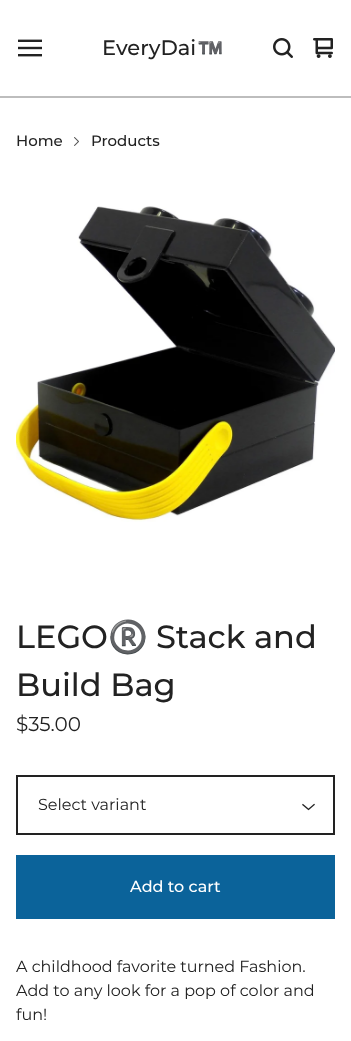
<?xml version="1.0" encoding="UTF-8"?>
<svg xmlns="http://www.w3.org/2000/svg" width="351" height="1041">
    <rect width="100%" height="100%" fill="#FFFFFF"/>
    <rect x="0" y="96" width="351" height="2" fill="#BDBDBD"/>
    <image x="18" y="39" width="24" height="18" href="img_01.png"/>
    <text x="102" y="55" font-family="Montserrat" font-size="21" font-weight="500" fill="#222222">EveryDai</text>
    <text x="197" y="55" font-family="Noto Color Emoji" font-size="21" fill="#222222">™️</text>
    <image x="273" y="38" width="20" height="20" href="img_02.png"/>
    <image x="313" y="38" width="20" height="20" href="img_03.png"/>
    <text x="16" y="146" font-family="Montserrat" font-size="15" font-weight="500" fill="#222222">Home</text>
    <image x="74" y="137" width="5" height="9" href="img_04.png"/>
    <text x="91" y="146" font-family="Montserrat" font-size="15" font-weight="500" fill="#222222">Products</text>
    <image x="16" y="206" width="319" height="316" href="img_05.png"/>
    <text x="16" y="648" font-family="Montserrat" font-size="32" font-weight="500" fill="#222222">LEGO</text>
    <text x="108" y="648" font-family="Noto Color Emoji" font-size="32" fill="#222222">®️</text>
    <text x="156" y="648" font-family="Montserrat" font-size="32" font-weight="500" fill="#222222">Stack and</text>
    <text x="16" y="696" font-family="Montserrat" font-size="32" font-weight="500" fill="#222222">Build Bag</text>
    <text x="16" y="731" font-family="Montserrat" font-size="20" fill="#222222">$35.00</text>
    <image x="302" y="803" width="13" height="8" href="img_06.png"/>
    <rect x="17" y="776" width="317" height="58" fill="none" stroke="#222222" stroke-width="2"/>
    <text x="38" y="810" font-family="Montserrat" font-size="16" fill="#222222">Select variant</text>
    <rect x="16" y="855" width="319" height="64" fill="#0B639A"/>
    <text x="130" y="892" font-family="Montserrat" font-size="16" font-weight="500" fill="#FFFFFF">Add to cart</text>
    <text font-family="Montserrat" font-size="16" fill="#222222">
        <tspan x="16" y="972">A childhood favorite turned Fashion.</tspan>
        <tspan x="16" y="996">Add to any look for a pop of color and</tspan>
        <tspan x="16" y="1020">fun!</tspan>
    </text>
</svg>
